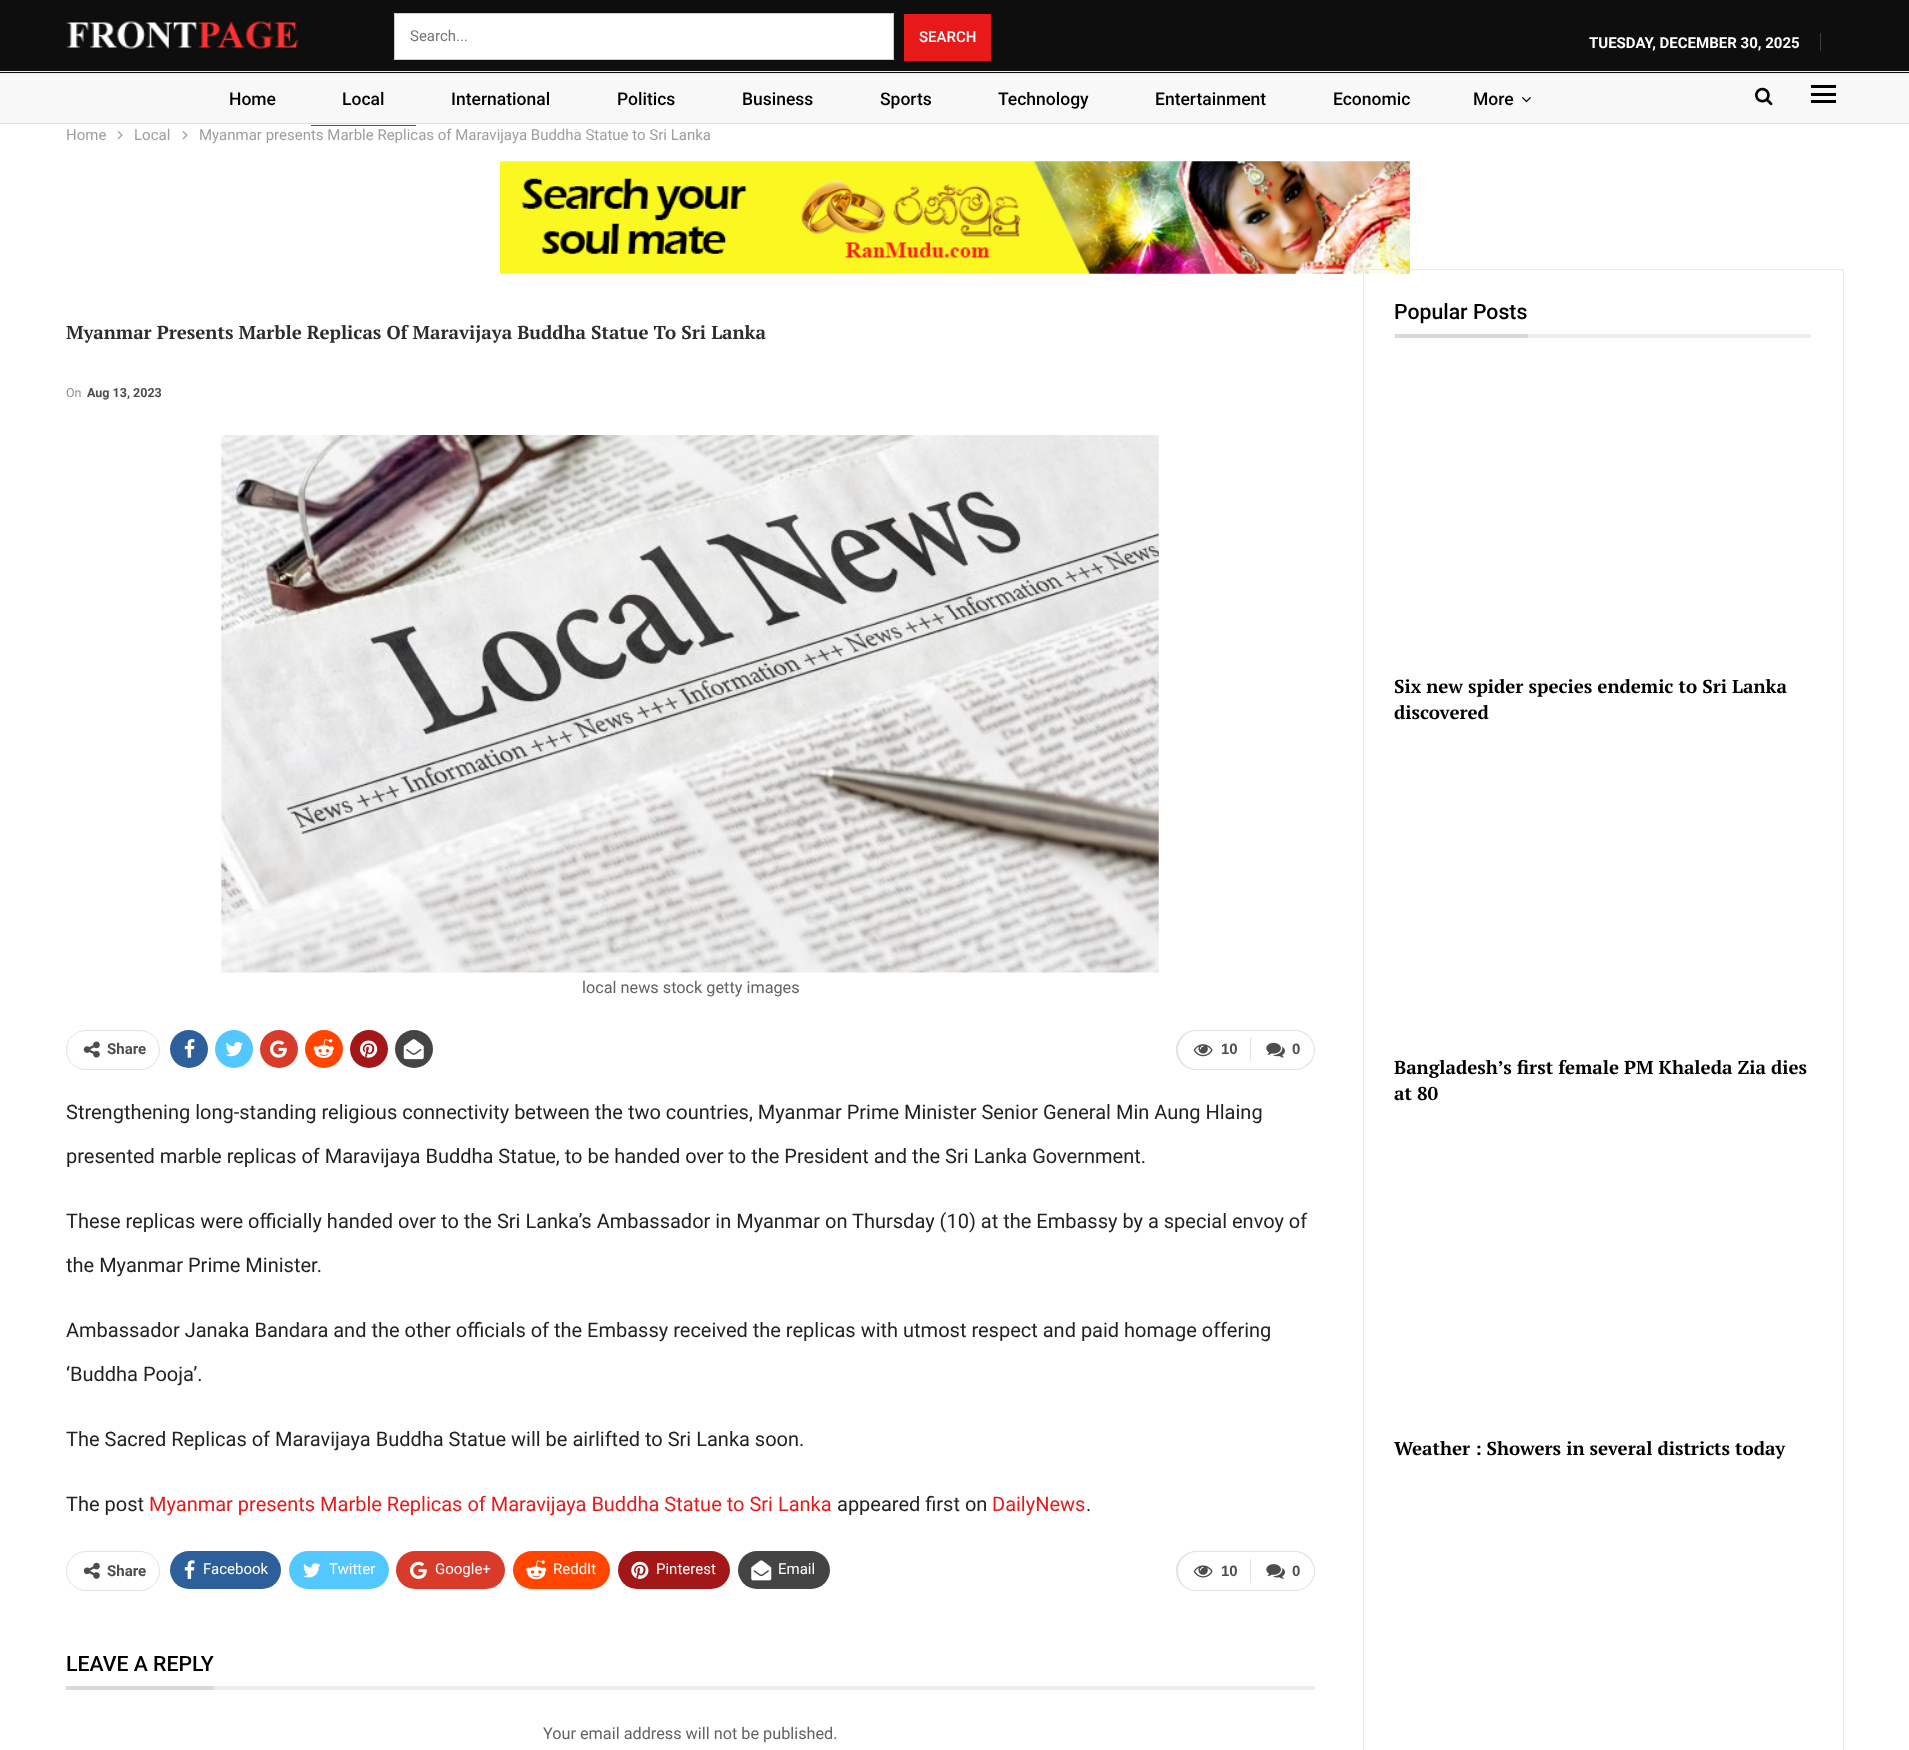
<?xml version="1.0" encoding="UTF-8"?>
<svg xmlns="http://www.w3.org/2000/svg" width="1909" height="1750">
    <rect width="100%" height="100%" fill="#FFFFFF"/>
    <rect x="0" y="0" width="1909" height="73" fill="#0E0E0E"/>
    <rect x="0" y="71" width="1909" height="1" fill="#EFEFEF"/>
    <image x="66" y="21" width="232" height="28" href="img_01.png"/>
    <rect x="394.5" y="13.5" width="499" height="46" fill="#FFFFFF" stroke="#CCCCCC"/>
    <text x="410" y="41" font-family="Roboto" font-size="15" fill="#757575">Search...</text>
    <rect x="904" y="14" width="87" height="47" fill="#E81919"/>
    <text x="919" y="42" font-family="Roboto" font-size="15" font-weight="500" fill="#FFFFFF">SEARCH</text>
    <text x="1589" y="48" font-family="Roboto" font-size="15" font-weight="700" fill="#FFFFFF">TUESDAY, DECEMBER 30, 2025</text>
    <rect x="1820" y="33" width="1" height="18" fill="#3E3E3E"/>
    <rect x="0" y="74" width="1909" height="49" fill="#F8F8F8"/>
    <rect x="0" y="73" width="1909" height="1" fill="#E8E8E8"/>
    <rect x="0" y="123" width="1909" height="1" fill="#DEDEDE"/>
    <text x="229" y="105" font-family="Roboto" font-size="17.5" font-weight="500" fill="#000000">Home</text>
    <text x="342" y="105" font-family="Roboto" font-size="17.5" font-weight="500" fill="#000000">Local</text>
    <rect x="311" y="125" width="105" height="1" fill="#E81919"/>
    <text x="451" y="105" font-family="Roboto" font-size="17.5" font-weight="500" fill="#000000">International</text>
    <text x="617" y="105" font-family="Roboto" font-size="17.5" font-weight="500" fill="#000000">Politics</text>
    <text x="742" y="105" font-family="Roboto" font-size="17.5" font-weight="500" fill="#000000">Business</text>
    <text x="880" y="105" font-family="Roboto" font-size="17.5" font-weight="500" fill="#000000">Sports</text>
    <text x="998" y="105" font-family="Roboto" font-size="17.5" font-weight="500" fill="#000000">Technology</text>
    <text x="1155" y="105" font-family="Roboto" font-size="17.5" font-weight="500" fill="#000000">Entertainment</text>
    <text x="1333" y="105" font-family="Roboto" font-size="17.5" font-weight="500" fill="#000000">Economic</text>
    <text x="1473" y="105" font-family="Roboto" font-size="17.5" font-weight="500" fill="#000000">More</text>
    <image x="1522" y="97" width="9" height="6" href="img_02.png"/>
    <image x="1755" y="87" width="18" height="19" href="img_03.png"/>
    <rect x="1811" y="93" width="25" height="3" fill="#000000"/>
    <rect x="1811" y="85" width="25" height="3" fill="#000000"/>
    <rect x="1811" y="100" width="25" height="3" fill="#000000"/>
    <text x="66" y="140" font-family="Roboto" font-size="15" fill="#9E9E9E">Home</text>
    <image x="117" y="131" width="6" height="9" href="img_04.png"/>
    <text x="134" y="140" font-family="Roboto" font-size="15" fill="#9E9E9E">Local</text>
    <image x="182" y="131" width="6" height="9" href="img_04.png"/>
    <text x="199" y="140" font-family="Roboto" font-size="15" fill="#9E9E9E">Myanmar presents Marble Replicas of Maravijaya Buddha Statue to Sri Lanka</text>
    <image x="500" y="161" width="910" height="113" href="img_05.png"/>
    <text x="66" y="339" font-family="PT Serif" font-size="18.75" font-weight="700" fill="#2D2D2D">Myanmar Presents Marble Replicas Of Maravijaya Buddha Statue To Sri Lanka</text>
    <text x="66" y="397" font-family="Roboto" font-size="12.5" fill="#8F8F8F">On</text>
    <text x="87" y="397" font-family="Roboto" font-size="12.5" font-weight="700" fill="#4D4D4D">Aug 13, 2023</text>
    <image x="221" y="435" width="938" height="538" href="img_06.png"/>
    <text x="582" y="993" font-family="Roboto" font-size="16.25" fill="#636363">local news stock getty images</text>
    <rect x="66.5" y="1030.5" width="93" height="39" rx="19.5" fill="none" stroke="#E2E2E2"/>
    <image x="83" y="1041" width="17" height="17" href="img_07.png"/>
    <text x="107" y="1054" font-family="Roboto" font-size="15" font-weight="700" fill="#4D4D4D">Share</text>
    <circle cx="189" cy="1049" r="19" fill="#2D5F9A"/>
    <image x="184" y="1039" width="11" height="19" href="img_08.png"/>
    <circle cx="234" cy="1049" r="19" fill="#53C7FF"/>
    <image x="225" y="1042" width="18" height="15" href="img_09.png"/>
    <circle cx="279" cy="1049" r="19" fill="#D93B2B"/>
    <image x="270" y="1040" width="17" height="18" href="img_10.png"/>
    <circle cx="324" cy="1049" r="19" fill="#FF4500"/>
    <image x="313" y="1039" width="21" height="19" href="img_11.png"/>
    <circle cx="369" cy="1049" r="19" fill="#A41719"/>
    <image x="360" y="1040" width="18" height="18" href="img_12.png"/>
    <circle cx="414" cy="1049" r="19" fill="#444444"/>
    <image x="403" y="1039" width="21" height="21" href="img_13.png"/>
    <path d="M 1196 1030 H 1250 V 1070 H 1196 C 1185 1070 1176 1061 1176 1050 C 1176 1039 1185 1030 1196 1030 Z M 1196 1031 H 1250 V 1069 H 1196 C 1186 1069 1178 1060 1178 1050 C 1178 1040 1186 1031 1196 1031 Z" fill="#E2E2E2" fill-rule="evenodd"/>
    <image x="1193" y="1044" width="20" height="13" href="img_14.png"/>
    <text x="1221" y="1054" font-family="Liberation Sans" font-size="15" font-weight="700" fill="#4D4D4D">10</text>
    <path d="M 1250 1030 H 1295 C 1306 1030 1315 1039 1315 1050 C 1315 1061 1306 1070 1295 1070 H 1250 Z M 1250 1031 H 1295 C 1305 1031 1314 1040 1314 1050 C 1314 1060 1305 1069 1295 1069 H 1250 Z" fill="#E2E2E2" fill-rule="evenodd"/>
    <rect x="1250" y="1038" width="1" height="23" fill="#E2E2E2"/>
    <image x="1266" y="1042" width="19" height="16" href="img_15.png"/>
    <text x="1292" y="1054" font-family="Liberation Sans" font-size="15" font-weight="700" fill="#4D4D4D">0</text>
    <text x="66" y="1119" font-family="Roboto" font-size="20" fill="#222222">Strengthening long-standing religious connectivity between the two countries, Myanmar Prime Minister Senior General Min Aung Hlaing</text>
    <text x="66" y="1163" font-family="Roboto" font-size="20" fill="#222222">presented marble replicas of Maravijaya Buddha Statue, to be handed over to the President and the Sri Lanka Government.</text>
    <text x="66" y="1228" font-family="Roboto" font-size="20" fill="#222222">These replicas were officially handed over to the Sri Lanka’s Ambassador in Myanmar on Thursday (10) at the Embassy by a special envoy of</text>
    <text x="66" y="1272" font-family="Roboto" font-size="20" fill="#222222">the Myanmar Prime Minister.</text>
    <text x="66" y="1337" font-family="Roboto" font-size="20" fill="#222222">Ambassador Janaka Bandara and the other officials of the Embassy received the replicas with utmost respect and paid homage offering</text>
    <text x="66" y="1381" font-family="Roboto" font-size="20" fill="#222222">‘Buddha Pooja’.</text>
    <text x="66" y="1446" font-family="Roboto" font-size="20" fill="#222222">The Sacred Replicas of Maravijaya Buddha Statue will be airlifted to Sri Lanka soon.</text>
    <text x="66" y="1511" font-family="Roboto" font-size="20" fill="#222222">The post</text>
    <text x="149" y="1511" font-family="Roboto" font-size="20" fill="#E81919">Myanmar presents Marble Replicas of Maravijaya Buddha Statue to Sri Lanka</text>
    <text x="837" y="1511" font-family="Roboto" font-size="20" fill="#222222">appeared first on</text>
    <text x="992" y="1511" font-family="Roboto" font-size="20" fill="#E81919">DailyNews</text>
    <text x="1086" y="1511" font-family="Roboto" font-size="20" fill="#222222">.</text>
    <rect x="66.5" y="1551.5" width="93" height="39" rx="19.5" fill="none" stroke="#E2E2E2"/>
    <image x="83" y="1562" width="17" height="17" href="img_16.png"/>
    <text x="107" y="1576" font-family="Roboto" font-size="15" font-weight="700" fill="#4D4D4D">Share</text>
    <rect x="170" y="1551" width="111" height="38" rx="19" fill="#2D5F9A"/>
    <image x="184" y="1560" width="11" height="19" href="img_17.png"/>
    <text x="203" y="1574" font-family="Roboto" font-size="15" fill="#FFFFFF">Facebook</text>
    <rect x="289" y="1551" width="100" height="38" rx="19" fill="#53C7FF"/>
    <image x="303" y="1563" width="18" height="15" href="img_18.png"/>
    <text x="329" y="1574" font-family="Roboto" font-size="15" fill="#FFFFFF">Twitter</text>
    <rect x="396" y="1551" width="109" height="38" rx="19" fill="#D93B2B"/>
    <image x="410" y="1561" width="17" height="18" href="img_19.png"/>
    <text x="435" y="1574" font-family="Roboto" font-size="15" fill="#FFFFFF">Google+</text>
    <rect x="513" y="1551" width="97" height="38" rx="19" fill="#FF4500"/>
    <image x="526" y="1560" width="21" height="20" href="img_20.png"/>
    <text x="553" y="1574" font-family="Roboto" font-size="15" fill="#FFFFFF">ReddIt</text>
    <rect x="618" y="1551" width="112" height="38" rx="19" fill="#A41719"/>
    <image x="631" y="1561" width="18" height="18" href="img_21.png"/>
    <text x="656" y="1574" font-family="Roboto" font-size="15" fill="#FFFFFF">Pinterest</text>
    <rect x="738" y="1551" width="92" height="38" rx="19" fill="#444444"/>
    <image x="751" y="1560" width="21" height="21" href="img_22.png"/>
    <text x="778" y="1574" font-family="Roboto" font-size="15" fill="#FFFFFF">Email</text>
    <path d="M 1196 1551 H 1250 V 1591 H 1196 C 1185 1591 1176 1582 1176 1571 C 1176 1560 1185 1551 1196 1551 Z M 1196 1552 H 1250 V 1590 H 1196 C 1186 1590 1178 1582 1178 1571 C 1178 1561 1186 1552 1196 1552 Z" fill="#E2E2E2" fill-rule="evenodd"/>
    <image x="1193" y="1565" width="20" height="13" href="img_23.png"/>
    <text x="1221" y="1576" font-family="Liberation Sans" font-size="15" font-weight="700" fill="#4D4D4D">10</text>
    <path d="M 1250 1551 H 1295 C 1306 1551 1315 1560 1315 1571 C 1315 1582 1306 1591 1295 1591 H 1250 Z M 1250 1552 H 1295 C 1305 1552 1314 1561 1314 1571 C 1314 1582 1305 1590 1295 1590 H 1250 Z" fill="#E2E2E2" fill-rule="evenodd"/>
    <rect x="1250" y="1559" width="1" height="24" fill="#E2E2E2"/>
    <image x="1266" y="1564" width="19" height="15" href="img_24.png"/>
    <text x="1292" y="1576" font-family="Liberation Sans" font-size="15" font-weight="700" fill="#4D4D4D">0</text>
    <text x="66" y="1671" font-family="Roboto" font-size="21.25" font-weight="500" fill="#000000">LEAVE A REPLY</text>
    <rect x="66" y="1686" width="148" height="4" fill="#DADADA"/>
    <rect x="214" y="1686" width="1101" height="4" fill="#EDEDED"/>
    <text x="543" y="1739" font-family="Roboto" font-size="16.25" fill="#636363">Your email address will not be published.</text>
    <rect x="1363.5" y="269.5" width="480" height="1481" fill="none" stroke="#EAEAEA"/>
    <text x="1394" y="319" font-family="Roboto" font-size="21.25" font-weight="500" fill="#000000">Popular Posts</text>
    <rect x="1395" y="334" width="133" height="4" fill="#DADADA"/>
    <rect x="1528" y="334" width="283" height="4" fill="#EDEDED"/>
    <text font-family="PT Serif" font-size="18.75" font-weight="700" fill="#000000">
        <tspan x="1394" y="693">Six new spider species endemic to Sri Lanka</tspan>
        <tspan x="1394" y="719">discovered</tspan>
    </text>
    <text font-family="PT Serif" font-size="18.75" font-weight="700" fill="#000000">
        <tspan x="1394" y="1074">Bangladesh’s first female PM Khaleda Zia dies</tspan>
        <tspan x="1394" y="1100">at 80</tspan>
    </text>
    <text x="1394" y="1455" font-family="PT Serif" font-size="18.75" font-weight="700" fill="#000000">Weather : Showers in several districts today</text>
</svg>
